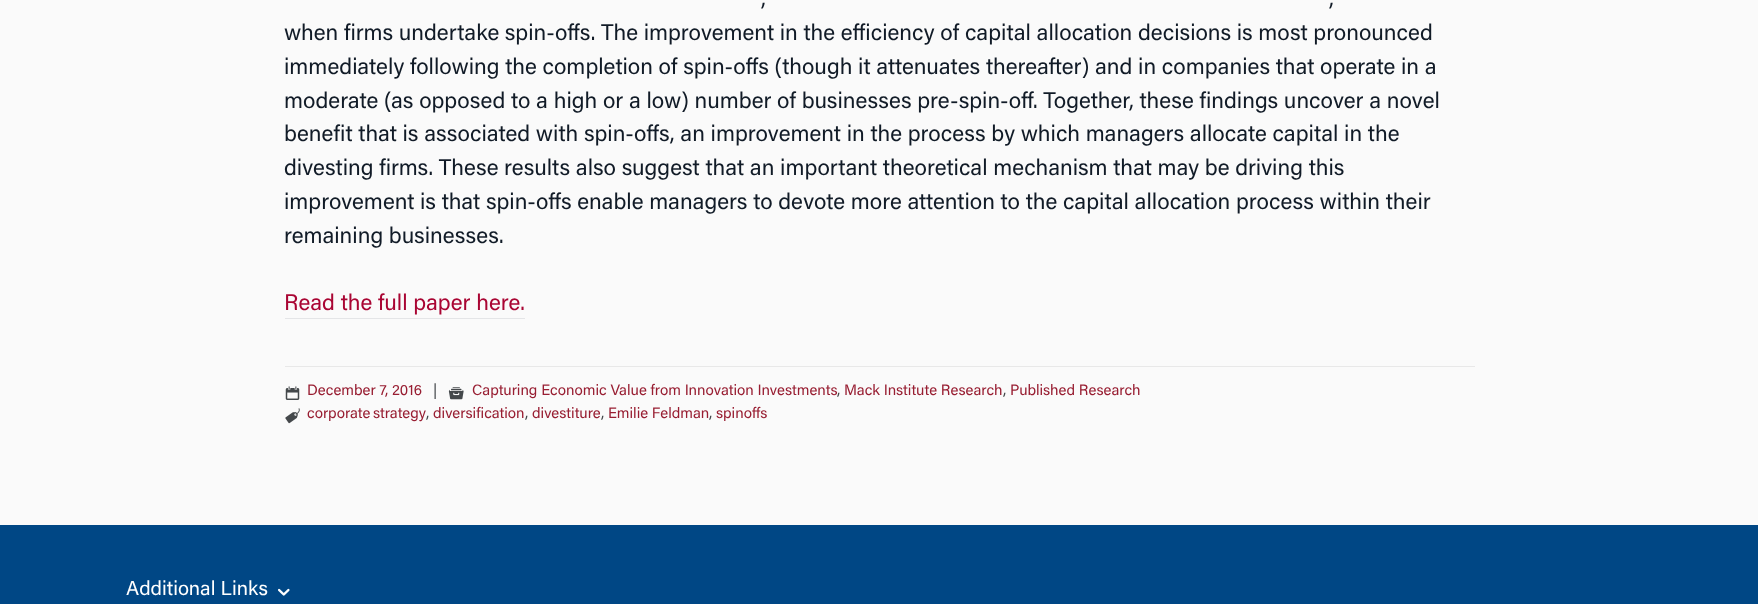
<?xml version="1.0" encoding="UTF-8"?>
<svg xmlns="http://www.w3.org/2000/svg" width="1758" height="604">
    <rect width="100%" height="100%" fill="#FAFAFA"/>
    <text x="761" y="6" font-family="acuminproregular" font-size="22.5" fill="#111B27">,</text>
    <text x="1329" y="6" font-family="acuminproregular" font-size="22.5" fill="#111B27">,</text>
    <text font-family="acuminproregular" font-size="22.5" fill="#111B27">
        <tspan x="284" y="40">when firms undertake spin-offs. The improvement in the efficiency of capital allocation decisions is most pronounced</tspan>
        <tspan x="284" y="74">immediately following the completion of spin-offs (though it attenuates thereafter) and in companies that operate in a</tspan>
        <tspan x="284" y="108">moderate (as opposed to a high or a low) number of businesses pre-spin-off. Together, these findings uncover a novel</tspan>
        <tspan x="284" y="141">benefit that is associated with spin-offs, an improvement in the process by which managers allocate capital in the</tspan>
        <tspan x="284" y="175">divesting firms. These results also suggest that an important theoretical mechanism that may be driving this</tspan>
        <tspan x="284" y="209">improvement is that spin-offs enable managers to devote more attention to the capital allocation process within their</tspan>
        <tspan x="284" y="243">remaining businesses.</tspan>
    </text>
    <text x="284" y="310" font-family="acuminproregular" font-size="22.5" fill="#A90533">Read the full paper here.</text>
    <rect x="285" y="318" width="240" height="1" fill="#E4E5E7"/>
    <rect x="285" y="366" width="1190" height="1" fill="#E8E8E8"/>
    <image x="285" y="386" width="15" height="14" href="img_01.png"/>
    <text x="307" y="395" font-family="acuminproregular" font-size="15" fill="#981E32">December 7, 2016</text>
    <text x="433" y="395" font-family="acuminproregular" font-size="15" fill="#44484B">|</text>
    <image x="448" y="387" width="16" height="13" href="img_02.png"/>
    <text x="472" y="395" font-family="acuminproregular" font-size="15" fill="#981E32">Capturing Economic Value from Innovation Investments</text>
    <text x="837" y="395" font-family="acuminproregular" font-size="15" fill="#44484B">,</text>
    <text x="844" y="395" font-family="acuminproregular" font-size="15" fill="#981E32">Mack Institute Research</text>
    <text x="1003" y="395" font-family="acuminproregular" font-size="15" fill="#44484B">,</text>
    <text x="1010" y="395" font-family="acuminproregular" font-size="15" fill="#981E32">Published Research</text>
    <image x="285" y="408" width="15" height="16" href="img_03.png"/>
    <text x="307" y="418" word-spacing="-1" font-family="acuminproregular" font-size="15" fill="#981E32">corporate strategy</text>
    <text x="426" y="418" font-family="acuminproregular" font-size="15" fill="#44484B">,</text>
    <text x="433" y="418" font-family="acuminproregular" font-size="15" fill="#981E32">diversification</text>
    <text x="525" y="418" font-family="acuminproregular" font-size="15" fill="#44484B">,</text>
    <text x="532" y="418" font-family="acuminproregular" font-size="15" fill="#981E32">divestiture</text>
    <text x="601" y="418" font-family="acuminproregular" font-size="15" fill="#44484B">,</text>
    <text x="608" y="418" font-family="acuminproregular" font-size="15" fill="#981E32">Emilie Feldman</text>
    <text x="709" y="418" font-family="acuminproregular" font-size="15" fill="#44484B">,</text>
    <text x="716" y="418" font-family="acuminproregular" font-size="15" fill="#981E32">spinoffs</text>
    <rect x="0" y="525" width="1758" height="79" fill="#004785"/>
    <text x="126" y="595" font-family="acuminproregular" font-size="20" fill="#FFFFFF">Additional Links</text>
    <image x="278" y="588" width="12" height="8" href="img_04.png"/>
</svg>
